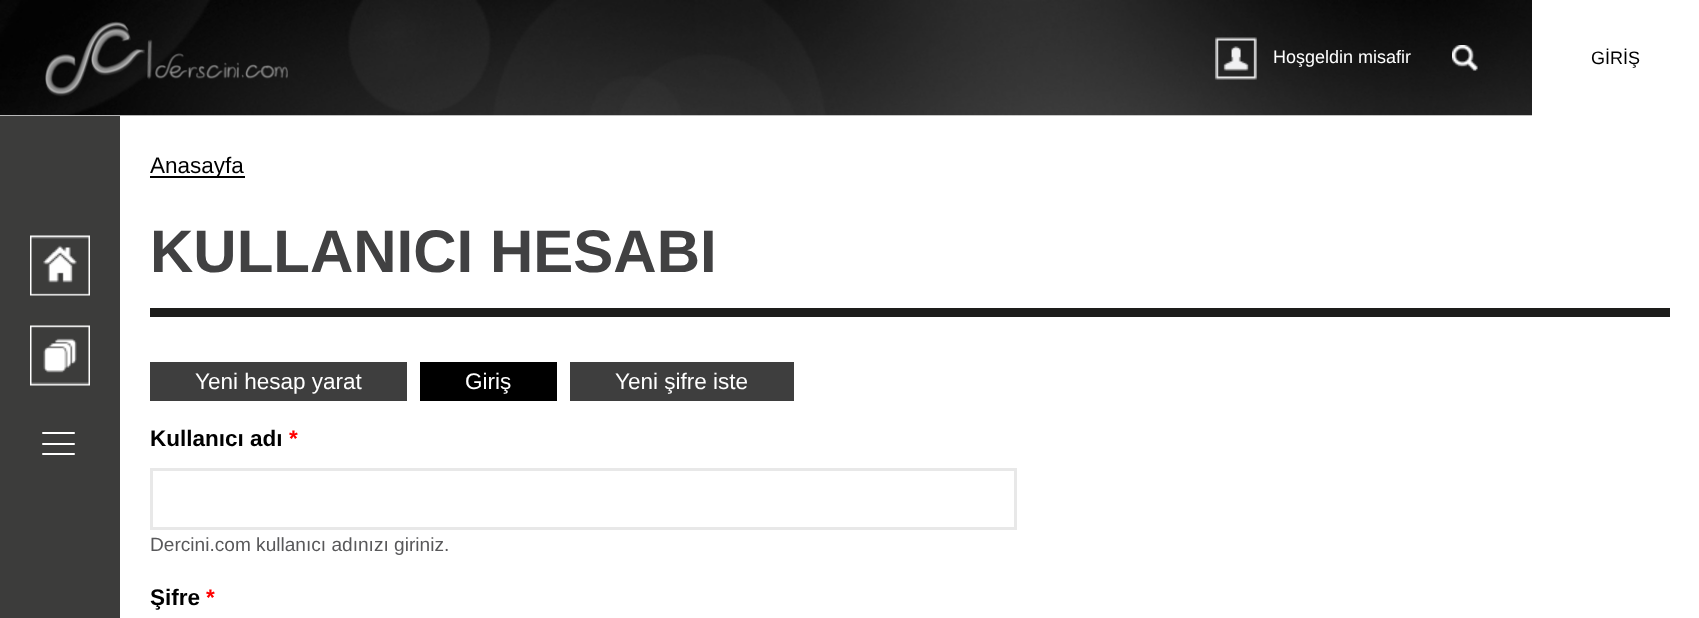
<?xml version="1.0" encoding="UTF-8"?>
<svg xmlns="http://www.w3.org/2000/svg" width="1699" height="618">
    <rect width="100%" height="100%" fill="#FFFFFF"/>
    <image x="0" y="0" width="1532" height="116" href="img_01.png"/>
    <image x="45" y="21" width="243" height="76" href="img_02.png"/>
    <image x="1215" y="37" width="42" height="43" href="img_03.png"/>
    <text x="1273" y="63" font-family="Liberation Sans" font-size="18" fill="#FFFFFF">Hoşgeldin misafir</text>
    <image x="1452" y="45" width="26" height="26" href="img_04.png"/>
    <text x="1591" y="64" font-family="Liberation Sans" font-size="18" fill="#000000">GİRİŞ</text>
    <image x="0" y="115" width="1532" height="1" href="img_05.png"/>
    <rect x="0" y="116" width="120" height="502" fill="#3C3C3B"/>
    <image x="30" y="235" width="60" height="61" href="img_06.png"/>
    <image x="30" y="325" width="60" height="61" href="img_07.png"/>
    <rect x="42" y="443" width="33" height="2" rx="1" fill="#FFFFFF"/>
    <rect x="42" y="432" width="33" height="2" rx="1" fill="#FFFFFF"/>
    <rect x="42" y="453" width="33" height="2" rx="1" fill="#FFFFFF"/>
    <rect x="150" y="176" width="95" height="2" fill="#000000"/>
    <text x="150" y="173" font-family="Liberation Sans" font-size="22.5" fill="#000000">Anasayfa</text>
    <rect x="150" y="308" width="1520" height="9" fill="#1D1D1B"/>
    <text x="150" y="272" font-family="Liberation Sans" font-size="60" font-weight="700" fill="#414142">KULLANICI HESABI</text>
    <rect x="150" y="362" width="257" height="39" fill="#3E3E3E"/>
    <text x="195" y="389" font-family="Liberation Sans" font-size="22.5" fill="#FFFFFF">Yeni hesap yarat</text>
    <rect x="420" y="362" width="137" height="39" fill="#000000"/>
    <text x="465" y="389" font-family="Liberation Sans" font-size="22.5" fill="#FFFFFF">Giriş</text>
    <rect x="570" y="362" width="224" height="39" fill="#3E3E3E"/>
    <text x="615" y="389" font-family="Liberation Sans" font-size="22.5" fill="#FFFFFF">Yeni şifre iste</text>
    <text x="150" y="446" font-family="Liberation Sans" font-size="22.5" font-weight="700" fill="#000000">Kullanıcı adı</text>
    <text x="289" y="446" font-family="Liberation Sans" font-size="22.5" font-weight="700" fill="#FF0000">*</text>
    <rect x="151.5" y="469.5" width="864" height="59" fill="none" stroke="#E8E8E8" stroke-width="3"/>
    <text x="150" y="551" font-family="Liberation Sans" font-size="19.1" fill="#58585A">Dercini.com kullanıcı adınızı giriniz.</text>
    <text x="150" y="605" font-family="Liberation Sans" font-size="22.5" font-weight="700" fill="#000000">Şifre</text>
    <text x="206" y="605" font-family="Liberation Sans" font-size="22.5" font-weight="700" fill="#FF0000">*</text>
</svg>
